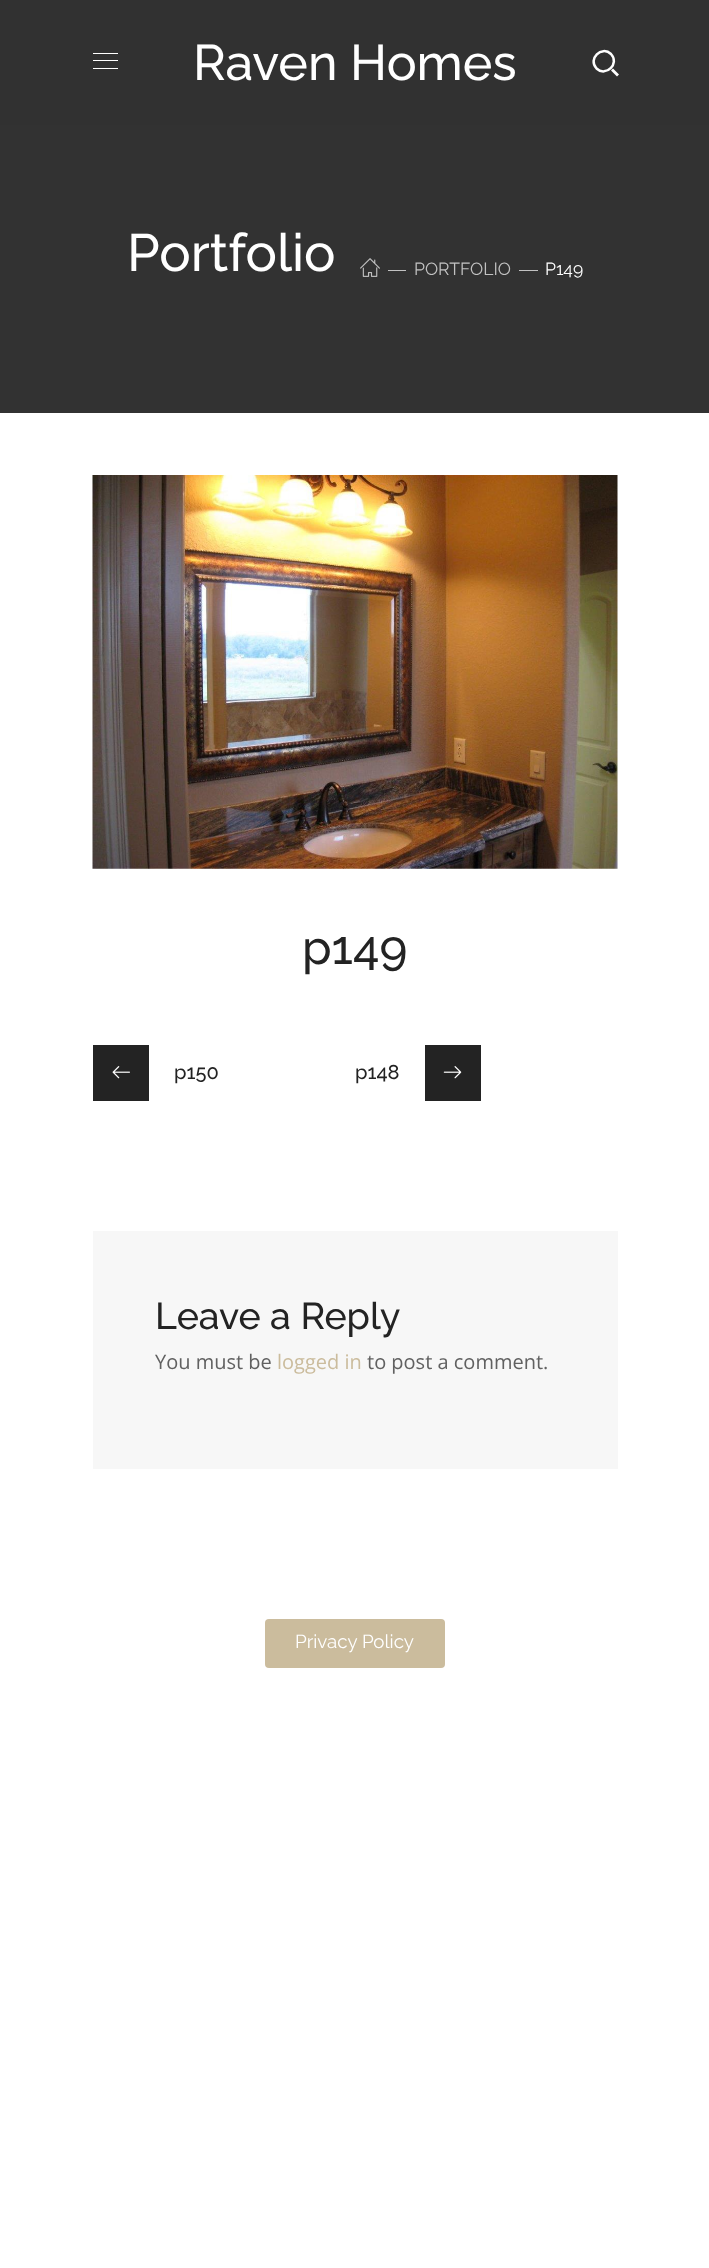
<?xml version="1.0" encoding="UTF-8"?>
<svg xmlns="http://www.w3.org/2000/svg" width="709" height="2268">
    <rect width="100%" height="100%" fill="#FFFFFF"/>
    <rect x="0" y="0" width="709" height="125" fill="#313131"/>
    <rect x="93" y="53" width="25" height="1" fill="#FFFFFF"/>
    <rect x="93" y="60" width="25" height="1" fill="#FFFFFF"/>
    <rect x="93" y="68" width="25" height="1" fill="#FFFFFF"/>
    <text x="193" y="80" font-family="Raleway" font-size="50" font-weight="500" fill="#FFFFFF">Raven Homes</text>
    <path d="M 611 54 C 620 63.5 606 77.5 596.5 68.5 C 587.5 59 601.5 45 611 54 Z" fill="none" stroke="#FFFFFF" stroke-width="2.5"/>
    <path d="M 611 70.5 L 613 68.5 L 619 74.5 L 617 76.5 Z" fill="#FFFFFF"/>
    <rect x="0" y="125" width="709" height="288" fill="#323232"/>
    <text x="127" y="271" font-family="Raleway" font-size="52.5" font-weight="500" fill="#FFFFFF">Portfolio</text>
    <image x="360" y="258" width="20" height="19" href="img_01.png"/>
    <rect x="388" y="270" width="18" height="1" fill="#C2C2C2"/>
    <text x="414" y="275" font-family="Raleway" font-size="17.5" fill="#C2C2C2">PORTFOLIO</text>
    <rect x="519" y="270" width="19" height="1" fill="#C2C2C2"/>
    <text x="545" y="275" font-family="Raleway" font-size="17.5" fill="#FFFFFF">P149</text>
    <image x="92" y="475" width="526" height="394" href="img_02.png"/>
    <text x="302" y="964" font-family="Raleway" font-size="47.5" font-weight="500" fill="#232323">p149</text>
    <rect x="93" y="1045" width="56" height="56" fill="#232323"/>
    <image x="112" y="1066" width="18" height="13" href="img_03.png"/>
    <text x="174" y="1079" font-family="Raleway" font-size="20" font-weight="500" fill="#232323">p150</text>
    <text x="355" y="1079" font-family="Raleway" font-size="20" font-weight="500" fill="#232323">p148</text>
    <rect x="425" y="1045" width="56" height="56" fill="#232323"/>
    <image x="443" y="1066" width="19" height="13" href="img_04.png"/>
    <rect x="93" y="1231" width="525" height="238" fill="#F7F7F7"/>
    <text x="155" y="1329" font-family="Raleway" font-size="37.5" font-weight="500" fill="#232323">Leave a Reply</text>
    <text x="155" y="1369" font-family="Open Sans" font-size="20" fill="#616161">You must be</text>
    <text x="277" y="1369" font-family="Open Sans" font-size="20" fill="#CBBC9D">logged in</text>
    <text x="367" y="1369" font-family="Open Sans" font-size="20" fill="#616161">to post a comment.</text>
    <rect x="265" y="1619" width="180" height="49" rx="4" fill="#CBBC9D"/>
    <text x="295" y="1648" font-family="Raleway" font-size="18.75" fill="#FFFFFF">Privacy Policy</text>
</svg>
